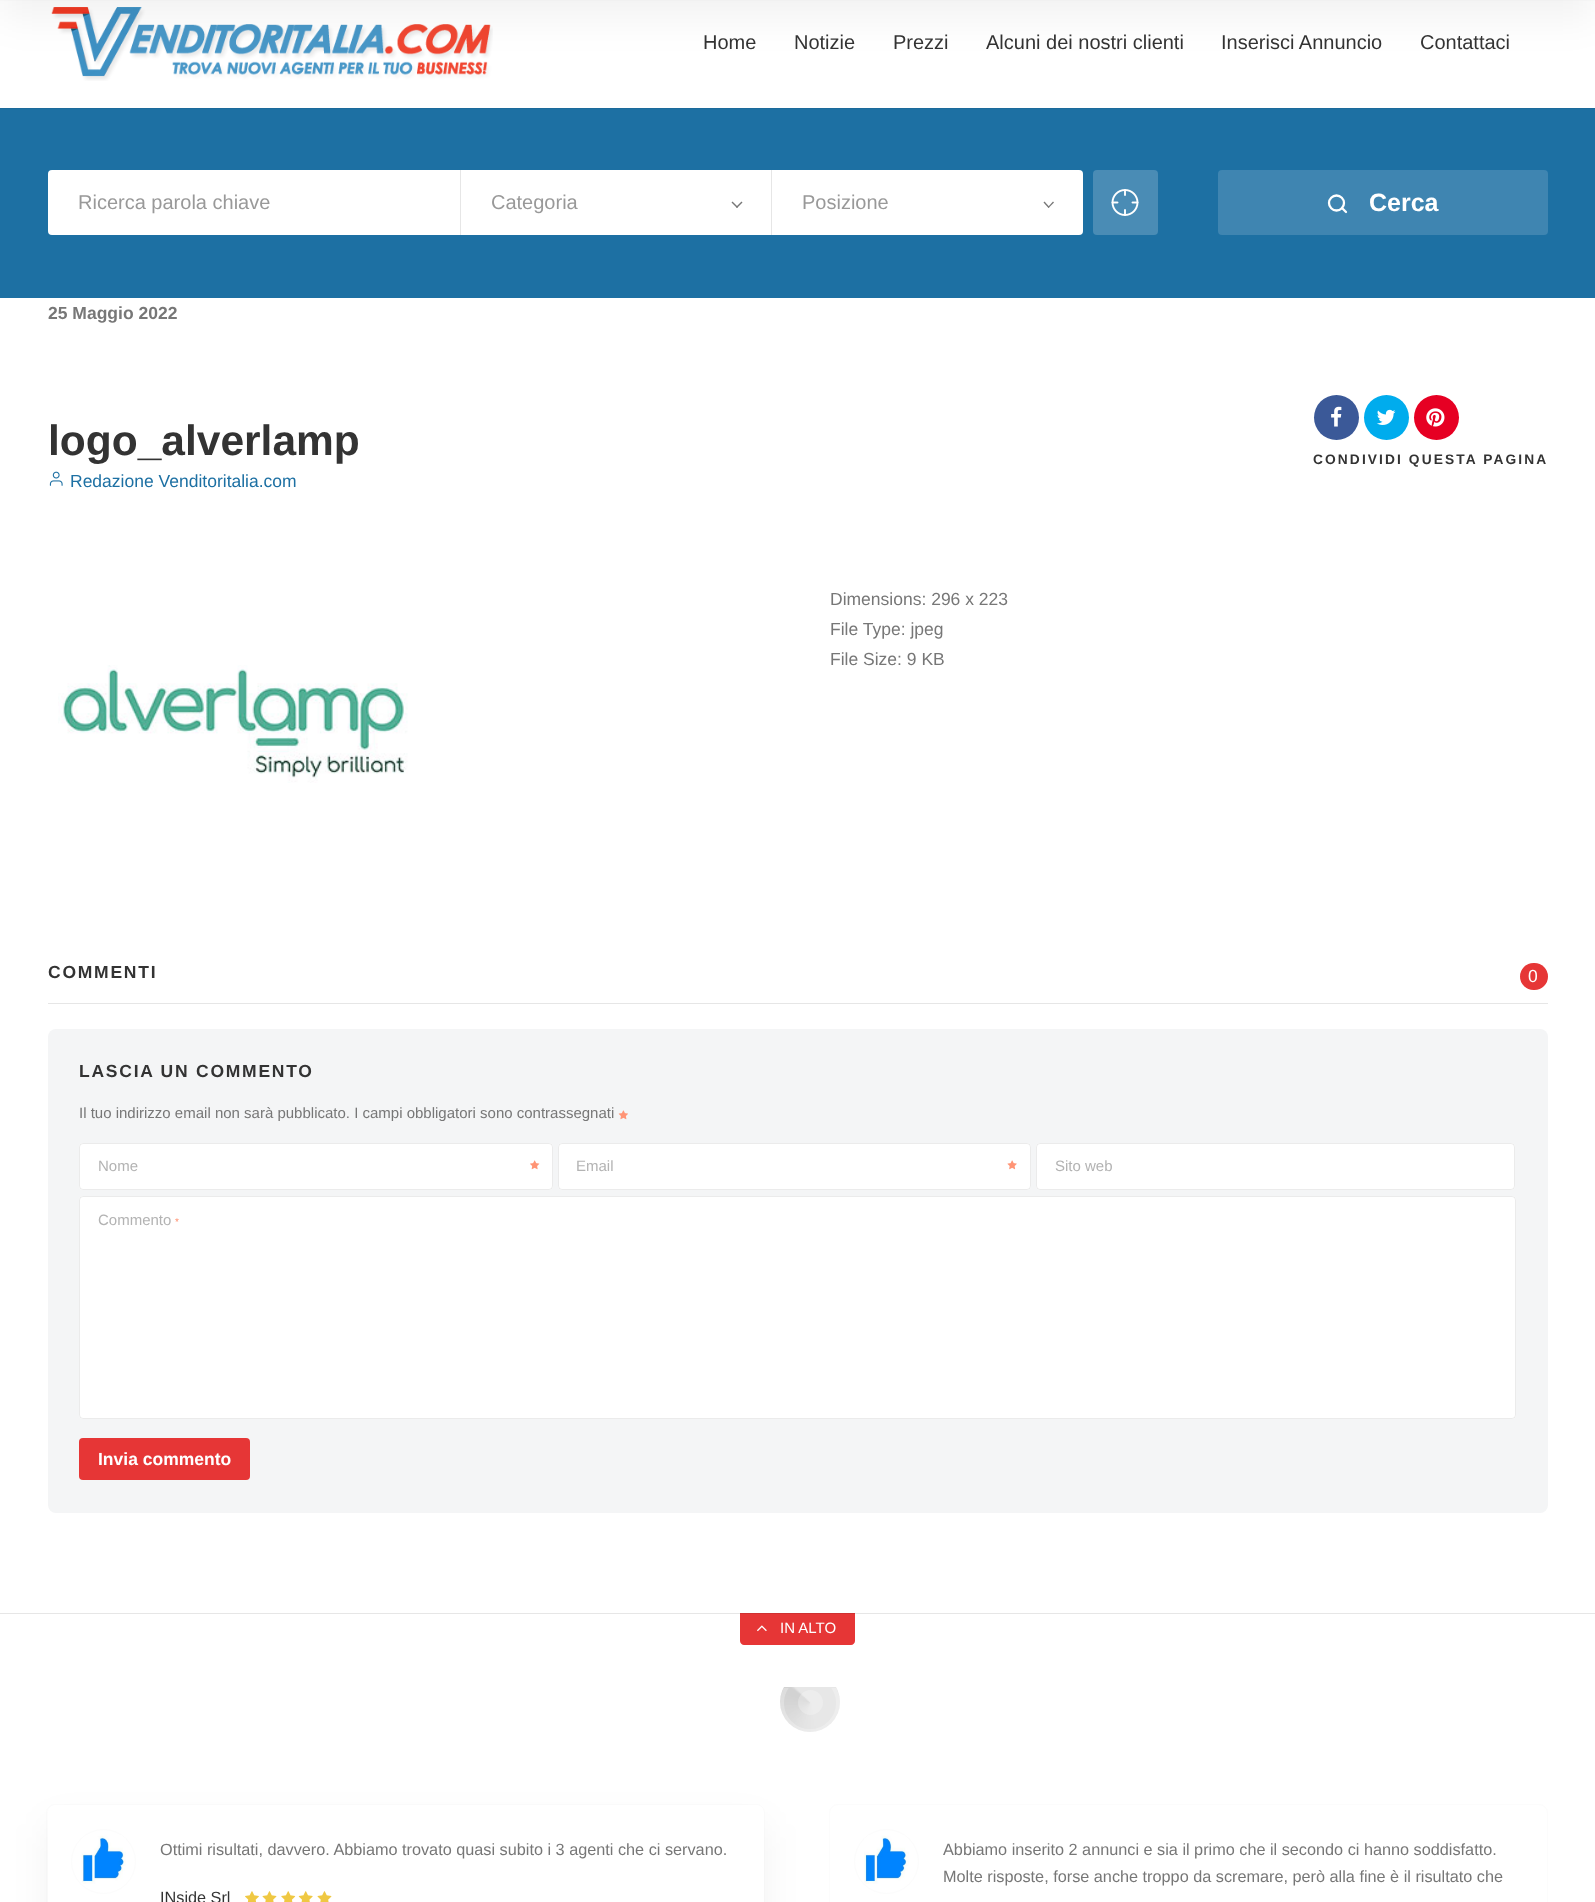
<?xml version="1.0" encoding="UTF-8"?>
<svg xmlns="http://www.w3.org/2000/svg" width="1595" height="1902">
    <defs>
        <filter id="blur1" x="-50%" y="-200%" width="200%" height="500%"><feGaussianBlur stdDeviation="19"/></filter>
        <clipPath id="clip1"><rect x="0" y="1688" width="1595" height="105"/></clipPath>
    </defs>
    <rect width="100%" height="100%" fill="#FFFFFF"/>
    <rect x="0" y="1613" width="1595" height="1" fill="#E6E6E6"/>
    <rect x="0" y="0" width="1595" height="1" fill="#FCFCFC"/>
    <image x="51" y="7" width="442" height="74" href="img_01.png"/>
    <rect x="0" y="-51" width="1595" height="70" fill="#000000" fill-opacity="0.05" filter="url(#blur1)"/>
    <rect x="0" y="108" width="1595" height="1" fill="#1C6A9B"/>
    <text x="703" y="49" font-family="Liberation Sans" font-size="20" fill="#333333">Home</text>
    <text x="794" y="49" font-family="Liberation Sans" font-size="20" fill="#333333">Notizie</text>
    <text x="893" y="49" font-family="Liberation Sans" font-size="20" fill="#333333">Prezzi</text>
    <text x="986" y="49" font-family="Liberation Sans" font-size="20" fill="#333333">Alcuni dei nostri clienti</text>
    <text x="1221" y="49" font-family="Liberation Sans" font-size="20" fill="#333333">Inserisci Annuncio</text>
    <text x="1420" y="49" font-family="Liberation Sans" font-size="20" fill="#333333">Contattaci</text>
    <rect x="0" y="109" width="1595" height="189" fill="#1D70A3"/>
    <rect x="48" y="170" width="1035" height="65" rx="4" fill="#FFFFFF"/>
    <rect x="460" y="170" width="1" height="65" fill="#E6E6E6"/>
    <text x="78" y="209" font-family="Liberation Sans" font-size="20" fill="#999999">Ricerca parola chiave</text>
    <rect x="771" y="170" width="1" height="65" fill="#E6E6E6"/>
    <text x="491" y="209" font-family="Liberation Sans" font-size="20" fill="#999999">Categoria</text>
    <path d="M 741.5 201.5 L 742.5 202.5 L 737 208 L 736 207 Z" fill="#777777"/>
    <path d="M 732.5 201.5 L 738 207 L 737 208 L 731.5 202.5 Z" fill="#777777"/>
    <text x="802" y="209" font-family="Liberation Sans" font-size="20" fill="#999999">Posizione</text>
    <path d="M 1053 201.5 L 1054 202.5 L 1048.5 208 L 1048 207 Z" fill="#777777"/>
    <path d="M 1044.5 201.5 L 1049.5 207 L 1048.5 208 L 1043.5 202.5 Z" fill="#777777"/>
    <rect x="1093" y="170" width="65" height="65" rx="4" fill="#4A8CB5"/>
    <image x="1111" y="189" width="28" height="27" href="img_02.png"/>
    <rect x="1218" y="170" width="330" height="65" rx="4" fill="#3F85B1"/>
    <circle cx="1336.5" cy="203" r="7.5" fill="none" stroke="#FFFFFF" stroke-width="2.3"/>
    <path d="M 1346 212 L 1342 208" fill="none" stroke="#FFFFFF" stroke-width="2.3" stroke-linecap="round" stroke-linejoin="round"/>
    <text x="1369" y="211" font-family="Liberation Sans" font-size="25" font-weight="700" fill="#FFFFFF">Cerca</text>
    <text x="48" y="319" font-family="Liberation Sans" font-size="17.5" font-weight="700" fill="#777777">25 Maggio 2022</text>
    <text x="48" y="455" font-family="Liberation Sans" font-size="42.5" font-weight="700" fill="#333333">logo_alverlamp</text>
    <image x="49" y="471" width="14" height="15" href="img_03.png"/>
    <text x="70" y="487" font-family="Liberation Sans" font-size="17.5" fill="#1D70A3">Redazione Venditoritalia.com</text>
    <circle cx="1336.5" cy="417.5" r="22.5" fill="#3B5998"/>
    <image x="1331" y="406" width="11" height="21" href="img_04.png"/>
    <circle cx="1386.5" cy="417.5" r="22.5" fill="#00ACED"/>
    <image x="1377" y="409" width="19" height="16" href="img_05.png"/>
    <circle cx="1436.5" cy="417.5" r="22.5" fill="#E60023"/>
    <image x="1426" y="408" width="19" height="19" href="img_06.png"/>
    <text x="1313" y="464" font-family="Liberation Sans" font-size="13.75" font-weight="700" letter-spacing="2.1" fill="#333333">CONDIVIDI QUESTA PAGINA</text>
    <text font-family="Liberation Sans" font-size="17.5" fill="#777777">
        <tspan x="830" y="605">Dimensions: 296 x 223</tspan>
        <tspan x="830" y="635">File Type: jpeg</tspan>
        <tspan x="830" y="665">File Size: 9 KB</tspan>
    </text>
    <image x="58" y="665" width="350" height="118" href="img_07.png"/>
    <rect x="48" y="1003" width="1500" height="1" fill="#E6E6E6"/>
    <text x="48" y="978" font-family="Liberation Sans" font-size="17.5" font-weight="700" letter-spacing="1.75" fill="#333333">COMMENTI</text>
    <rect x="1520" y="963" width="28" height="27" rx="13.5" fill="#E63636"/>
    <text x="1528" y="982" font-family="Liberation Sans" font-size="17.5" letter-spacing="1.75" fill="#FFFFFF">0</text>
    <rect x="48" y="1029" width="1500" height="484" rx="8" fill="#F4F5F6"/>
    <text x="79" y="1077" font-family="Liberation Sans" font-size="17.5" font-weight="700" letter-spacing="1.75" fill="#333333">LASCIA UN COMMENTO</text>
    <text x="79" y="1118" font-family="Liberation Sans" font-size="15" fill="#777777">Il tuo indirizzo email non sarà pubblicato. I campi obbligatori sono contrassegnati</text>
    <image x="618" y="1110" width="10" height="10" href="img_08.png"/>
    <rect x="79" y="1143" width="474" height="47" rx="4" fill="#FFFFFF"/>
    <rect x="79.5" y="1143.5" width="473" height="46" rx="3.5" fill="none" stroke="#000000" stroke-opacity="0.08"/>
    <text x="98" y="1171" font-family="Liberation Sans" font-size="15" fill="#B3B3B3">Nome</text>
    <image x="530" y="1160" width="10" height="10" href="img_09.png"/>
    <rect x="558" y="1143" width="473" height="47" rx="4" fill="#FFFFFF"/>
    <rect x="558.5" y="1143.5" width="472" height="46" rx="3.5" fill="none" stroke="#000000" stroke-opacity="0.08"/>
    <text x="576" y="1171" font-family="Liberation Sans" font-size="15" fill="#B3B3B3">Email</text>
    <image x="1007" y="1160" width="10" height="10" href="img_10.png"/>
    <rect x="1036" y="1143" width="479" height="47" rx="4" fill="#FFFFFF"/>
    <rect x="1036.5" y="1143.5" width="478" height="46" rx="3.5" fill="none" stroke="#000000" stroke-opacity="0.08"/>
    <text x="1055" y="1171" font-family="Liberation Sans" font-size="15" fill="#B3B3B3">Sito web</text>
    <rect x="79" y="1196" width="1437" height="223" rx="4" fill="#FFFFFF"/>
    <rect x="79.5" y="1196.5" width="1436" height="222" rx="3.5" fill="none" stroke="#000000" stroke-opacity="0.08"/>
    <text x="98" y="1225" font-family="Liberation Sans" font-size="15" fill="#B3B3B3">Commento</text>
    <text x="175" y="1225" font-family="Liberation Sans" font-size="10" fill="#FF9475">*</text>
    <rect x="79" y="1438" width="171" height="42" rx="4" fill="#E63636"/>
    <text x="98" y="1465" font-family="Liberation Sans" font-size="17.5" font-weight="700" fill="#FFFFFF">Invia commento</text>
    <path d="M 740 1613 H 855 V 1641 C 855 1643 853 1645 851 1645 H 744 C 742 1645 740 1643 740 1641 Z" fill="#E63636"/>
    <rect x="740" y="1613" width="115" height="1" fill="#CF3131"/>
    <image x="757" y="1625" width="10" height="7" href="img_11.png"/>
    <text x="780" y="1633" font-family="Liberation Sans" font-size="15" fill="#FFFFFF">IN ALTO</text>
    <image x="780" y="1687" width="60" height="45" href="img_12.png"/>
    <g clip-path="url(#clip1)">
        <circle cx="810" cy="1703" r="28" fill="none" stroke="#FFFFFF" stroke-opacity="0.26" stroke-width="4"/>
    </g>
    <circle cx="810.5" cy="1702.5" r="12.5" fill="#FFFFFF" fill-opacity="0.26"/>
    <rect x="46.5" y="1804.5" width="718" height="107" rx="8.5" fill="none" stroke="#FCFCFC"/>
    <rect x="48" y="1824" width="716" height="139" rx="8" fill="#000000" fill-opacity="0.05" filter="url(#blur1)"/>
    <rect x="48" y="1805" width="716" height="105" rx="8" fill="#FFFFFF"/>
    <circle cx="103.5" cy="1861.5" r="32" fill="none" stroke="#FCFCFC"/>
    <image x="81" y="1835" width="45" height="49" href="img_13.png"/>
    <text x="160" y="1855" font-family="Liberation Sans" font-size="16.25" fill="#777777">Ottimi risultati, davvero. Abbiamo trovato quasi subito i 3 agenti che ci servano.</text>
    <text x="160" y="1903" font-family="Liberation Sans" font-size="16.25" fill="#333333">INside Srl</text>
    <image x="245" y="1891" width="14" height="11" href="img_14.png"/>
    <image x="262" y="1891" width="15" height="11" href="img_15.png"/>
    <image x="281" y="1891" width="15" height="11" href="img_16.png"/>
    <image x="298" y="1891" width="15" height="11" href="img_17.png"/>
    <image x="317" y="1891" width="15" height="11" href="img_15.png"/>
    <rect x="829.5" y="1804.5" width="718" height="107" rx="8.5" fill="none" stroke="#FCFCFC"/>
    <circle cx="886.5" cy="1861.5" r="32" fill="none" stroke="#FCFCFC"/>
    <image x="864" y="1835" width="45" height="49" href="img_18.png"/>
    <text font-family="Liberation Sans" font-size="16.25" fill="#777777">
        <tspan x="943" y="1855">Abbiamo inserito 2 annunci e sia il primo che il secondo ci hanno soddisfatto.</tspan>
        <tspan x="943" y="1882">Molte risposte, forse anche troppo da scremare, però alla fine è il risultato che</tspan>
    </text>
</svg>
